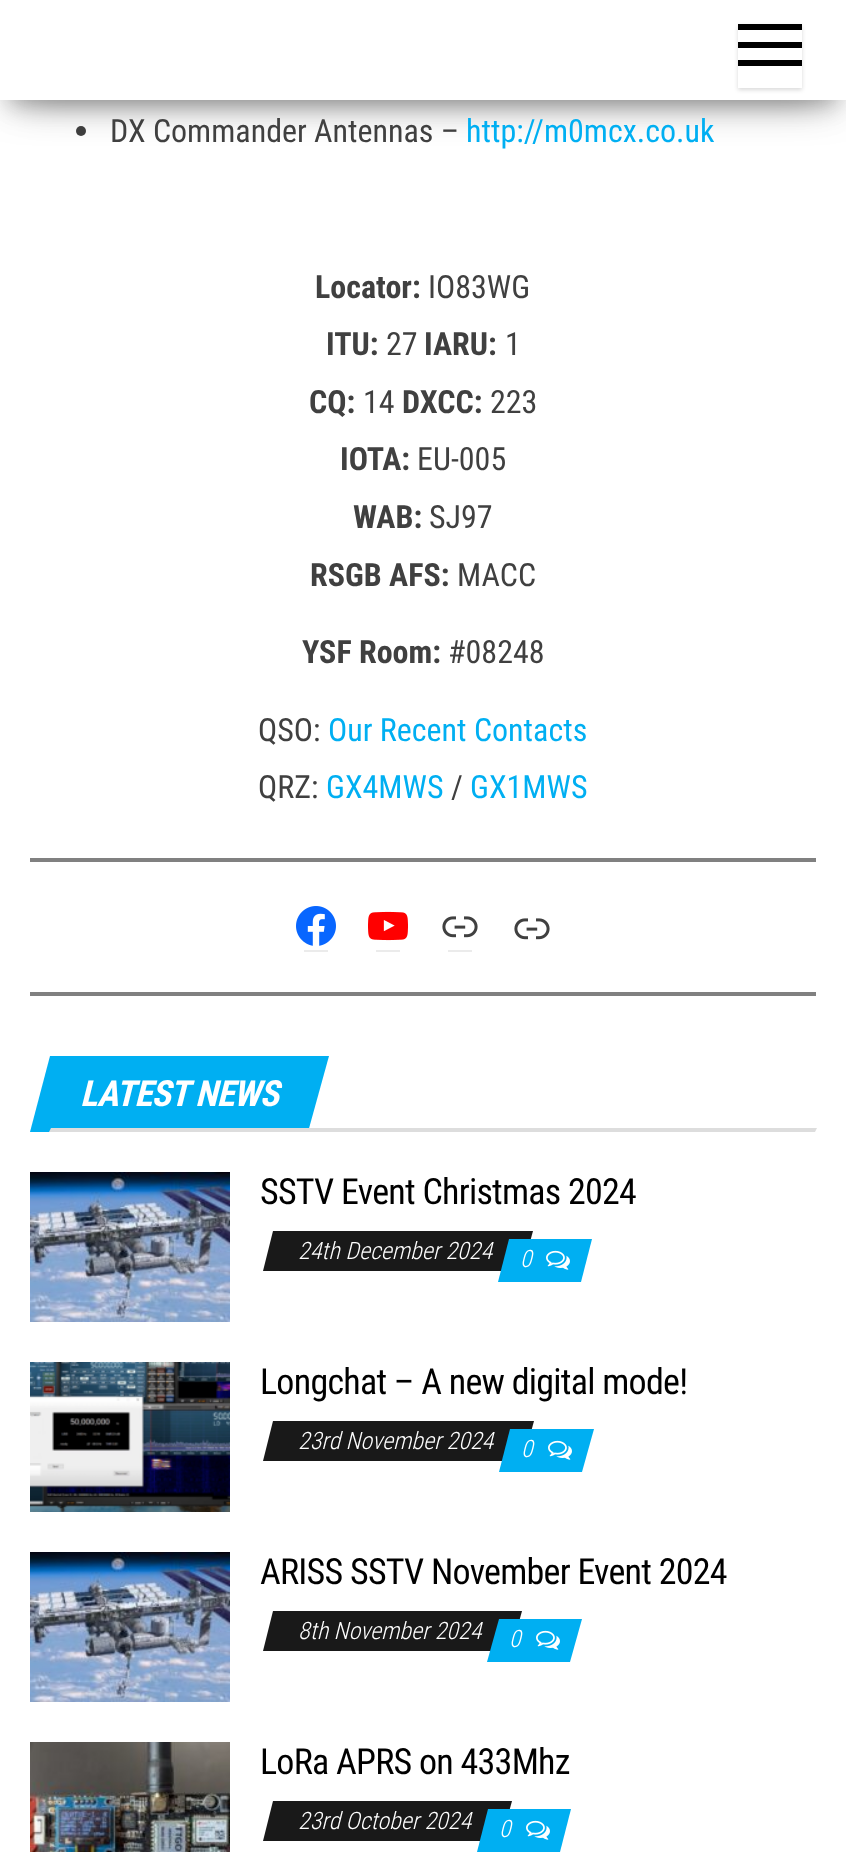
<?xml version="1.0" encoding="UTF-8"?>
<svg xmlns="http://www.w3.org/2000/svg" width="846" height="1852">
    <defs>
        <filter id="blur1" x="-50%" y="-200%" width="200%" height="500%"><feGaussianBlur stdDeviation="10"/></filter>
        <filter id="blur2" x="-50%" y="-200%" width="200%" height="500%"><feGaussianBlur stdDeviation="20"/></filter>
        <clipPath id="clip1"><path d="M 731 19 H 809 V 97 H 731 Z M 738 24 H 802 V 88 H 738 Z" clip-rule="evenodd"/></clipPath>
        <filter id="blur3" x="-50%" y="-200%" width="200%" height="500%"><feGaussianBlur stdDeviation="2"/></filter>
    </defs>
    <rect width="100%" height="100%" fill="#FFFFFF"/>
    <circle cx="81" cy="131" r="5" fill="#404040"/>
    <rect x="10" y="26" width="826" height="80" fill="#000000" fill-opacity="0.2" filter="url(#blur1)"/>
    <rect x="0" y="6" width="846" height="100" fill="#000000" fill-opacity="0.12" filter="url(#blur2)"/>
    <rect x="24" y="44" width="798" height="52" fill="#000000" fill-opacity="0.42" filter="url(#blur2)"/>
    <rect x="0" y="0" width="846" height="100" fill="#FFFFFF"/>
    <g clip-path="url(#clip1)">
        <rect x="738" y="26" width="64" height="64" fill="#000000" fill-opacity="0.15" filter="url(#blur3)"/>
    </g>
    <rect x="738" y="24" width="64" height="6" fill="#000000"/>
    <rect x="738" y="42" width="64" height="6" fill="#000000"/>
    <rect x="738" y="60" width="64" height="6" fill="#000000"/>
    <text x="110" y="142" font-family="Roboto Condensed" font-size="32" fill="#404040">DX Commander Antennas –</text>
    <text x="466" y="142" font-family="Roboto Condensed" font-size="32" fill="#00AFF2">http://m0mcx.co.uk</text>
    <text x="315" y="298" font-family="Roboto Condensed" font-size="32" font-weight="700" fill="#404040">Locator:</text>
    <text x="428" y="298" font-family="Roboto Condensed" font-size="32" fill="#404040">IO83WG</text>
    <text x="326" y="355" font-family="Roboto Condensed" font-size="32" font-weight="700" fill="#404040">ITU:</text>
    <text x="386" y="355" font-family="Roboto Condensed" font-size="32" fill="#404040">27</text>
    <text x="424" y="355" font-family="Roboto Condensed" font-size="32" font-weight="700" fill="#404040">IARU:</text>
    <text x="505" y="355" font-family="Roboto Condensed" font-size="32" fill="#404040">1</text>
    <text x="309" y="413" font-family="Roboto Condensed" font-size="32" font-weight="700" fill="#404040">CQ:</text>
    <text x="363" y="413" font-family="Roboto Condensed" font-size="32" fill="#404040">14</text>
    <text x="402" y="413" font-family="Roboto Condensed" font-size="32" font-weight="700" fill="#404040">DXCC:</text>
    <text x="490" y="413" font-family="Roboto Condensed" font-size="32" fill="#404040">223</text>
    <text x="340" y="470" font-family="Roboto Condensed" font-size="32" font-weight="700" fill="#404040">IOTA:</text>
    <text x="417" y="470" font-family="Roboto Condensed" font-size="32" fill="#404040">EU-005</text>
    <text x="353" y="528" font-family="Roboto Condensed" font-size="32" font-weight="700" fill="#404040">WAB:</text>
    <text x="429" y="528" font-family="Roboto Condensed" font-size="32" fill="#404040">SJ97</text>
    <text x="310" y="586" font-family="Roboto Condensed" font-size="32" font-weight="700" fill="#404040">RSGB AFS:</text>
    <text x="457" y="586" font-family="Roboto Condensed" font-size="32" fill="#404040">MACC</text>
    <text x="302" y="663" font-family="Roboto Condensed" font-size="32" font-weight="700" fill="#404040">YSF Room:</text>
    <text x="448" y="663" font-family="Roboto Condensed" font-size="32" fill="#404040">#08248</text>
    <text x="258" y="741" font-family="Roboto Condensed" font-size="32" fill="#404040">QSO:</text>
    <text x="328" y="741" font-family="Roboto Condensed" font-size="32" fill="#00AFF2">Our Recent Contacts</text>
    <text x="258" y="798" font-family="Roboto Condensed" font-size="32" fill="#404040">QRZ:</text>
    <text x="326" y="798" font-family="Roboto Condensed" font-size="32" fill="#00AFF2">GX4MWS</text>
    <text x="451" y="798" font-family="Roboto Condensed" font-size="32" fill="#404040">/</text>
    <text x="470" y="798" font-family="Roboto Condensed" font-size="32" fill="#00AFF2">GX1MWS</text>
    <rect x="30" y="858" width="786" height="4" fill="#808080"/>
    <rect x="304" y="950" width="24" height="2" fill="#EBEBEB"/>
    <image x="296" y="906" width="40" height="40" href="img_01.png"/>
    <rect x="376" y="950" width="24" height="2" fill="#EBEBEB"/>
    <image x="368" y="911" width="40" height="30" href="img_02.png"/>
    <rect x="448" y="950" width="24" height="2" fill="#EBEBEB"/>
    <image x="442" y="916" width="36" height="22" href="img_03.png"/>
    <image x="514" y="918" width="36" height="22" href="img_03.png"/>
    <rect x="30" y="992" width="786" height="4" fill="#808080"/>
    <path d="M 50 1056 H 329 L 308 1132 H 30 Z" fill="#00AFF2"/>
    <text x="80" y="1106" font-family="Roboto Condensed" font-size="36" font-weight="700" font-style="italic" letter-spacing="-0.75" fill="#FFFFFF">LATEST NEWS</text>
    <path d="M 51 1128 H 817 L 815 1132 H 49 Z" fill="#DDDDDD"/>
    <image x="30" y="1172" width="200" height="150" href="img_04.png"/>
    <text x="260" y="1204" font-family="Roboto Condensed" font-size="36" letter-spacing="-0.75" fill="#000000">SSTV Event Christmas 2024</text>
    <path d="M 273 1231 H 533 L 522 1271 H 263 Z" fill="#191919"/>
    <text x="298" y="1259" font-family="Roboto Condensed" font-size="24" font-weight="300" font-style="italic" fill="#FFFFFF">24th December 2024</text>
    <path d="M 509 1239 H 592 L 581 1282 H 498 Z" fill="#00AFF2"/>
    <text x="520" y="1267" font-family="Roboto Condensed" font-size="24" font-weight="300" font-style="italic" fill="#FFFFFF">0</text>
    <image x="546" y="1250" width="24" height="20" href="img_05.png"/>
    <image x="30" y="1362" width="200" height="150" href="img_06.png"/>
    <text x="260" y="1394" font-family="Roboto Condensed" font-size="36" letter-spacing="-0.75" fill="#000000">Longchat – A new digital mode!</text>
    <path d="M 273 1421 H 534 L 523 1461 H 263 Z" fill="#191919"/>
    <text x="298" y="1449" font-family="Roboto Condensed" font-size="24" font-weight="300" font-style="italic" fill="#FFFFFF">23rd November 2024</text>
    <path d="M 510 1429 H 594 L 582 1472 H 499 Z" fill="#00AFF2"/>
    <text x="521" y="1457" font-family="Roboto Condensed" font-size="24" font-weight="300" font-style="italic" fill="#FFFFFF">0</text>
    <image x="548" y="1440" width="24" height="20" href="img_05.png"/>
    <image x="30" y="1552" width="200" height="150" href="img_04.png"/>
    <text x="260" y="1584" font-family="Roboto Condensed" font-size="36" letter-spacing="-0.75" fill="#000000">ARISS SSTV November Event 2024</text>
    <path d="M 273 1611 H 522 L 511 1651 H 263 Z" fill="#191919"/>
    <text x="298" y="1639" font-family="Roboto Condensed" font-size="24" font-weight="300" font-style="italic" fill="#FFFFFF">8th November 2024</text>
    <path d="M 499 1619 H 582 L 570 1662 H 487 Z" fill="#00AFF2"/>
    <text x="509" y="1647" font-family="Roboto Condensed" font-size="24" font-weight="300" font-style="italic" fill="#FFFFFF">0</text>
    <image x="536" y="1630" width="24" height="20" href="img_05.png"/>
    <image x="30" y="1742" width="200" height="110" href="img_07.png"/>
    <text x="260" y="1774" font-family="Roboto Condensed" font-size="36" letter-spacing="-0.75" fill="#000000">LoRa APRS on 433Mhz</text>
    <path d="M 273 1801 H 512 L 501 1841 H 263 Z" fill="#191919"/>
    <text x="298" y="1829" font-family="Roboto Condensed" font-size="24" font-weight="300" font-style="italic" fill="#FFFFFF">23rd October 2024</text>
    <path d="M 488 1809 H 571 L 560 1852 H 477 Z" fill="#00AFF2"/>
    <text x="499" y="1837" font-family="Roboto Condensed" font-size="24" font-weight="300" font-style="italic" fill="#FFFFFF">0</text>
    <image x="526" y="1820" width="24" height="20" href="img_05.png"/>
</svg>
